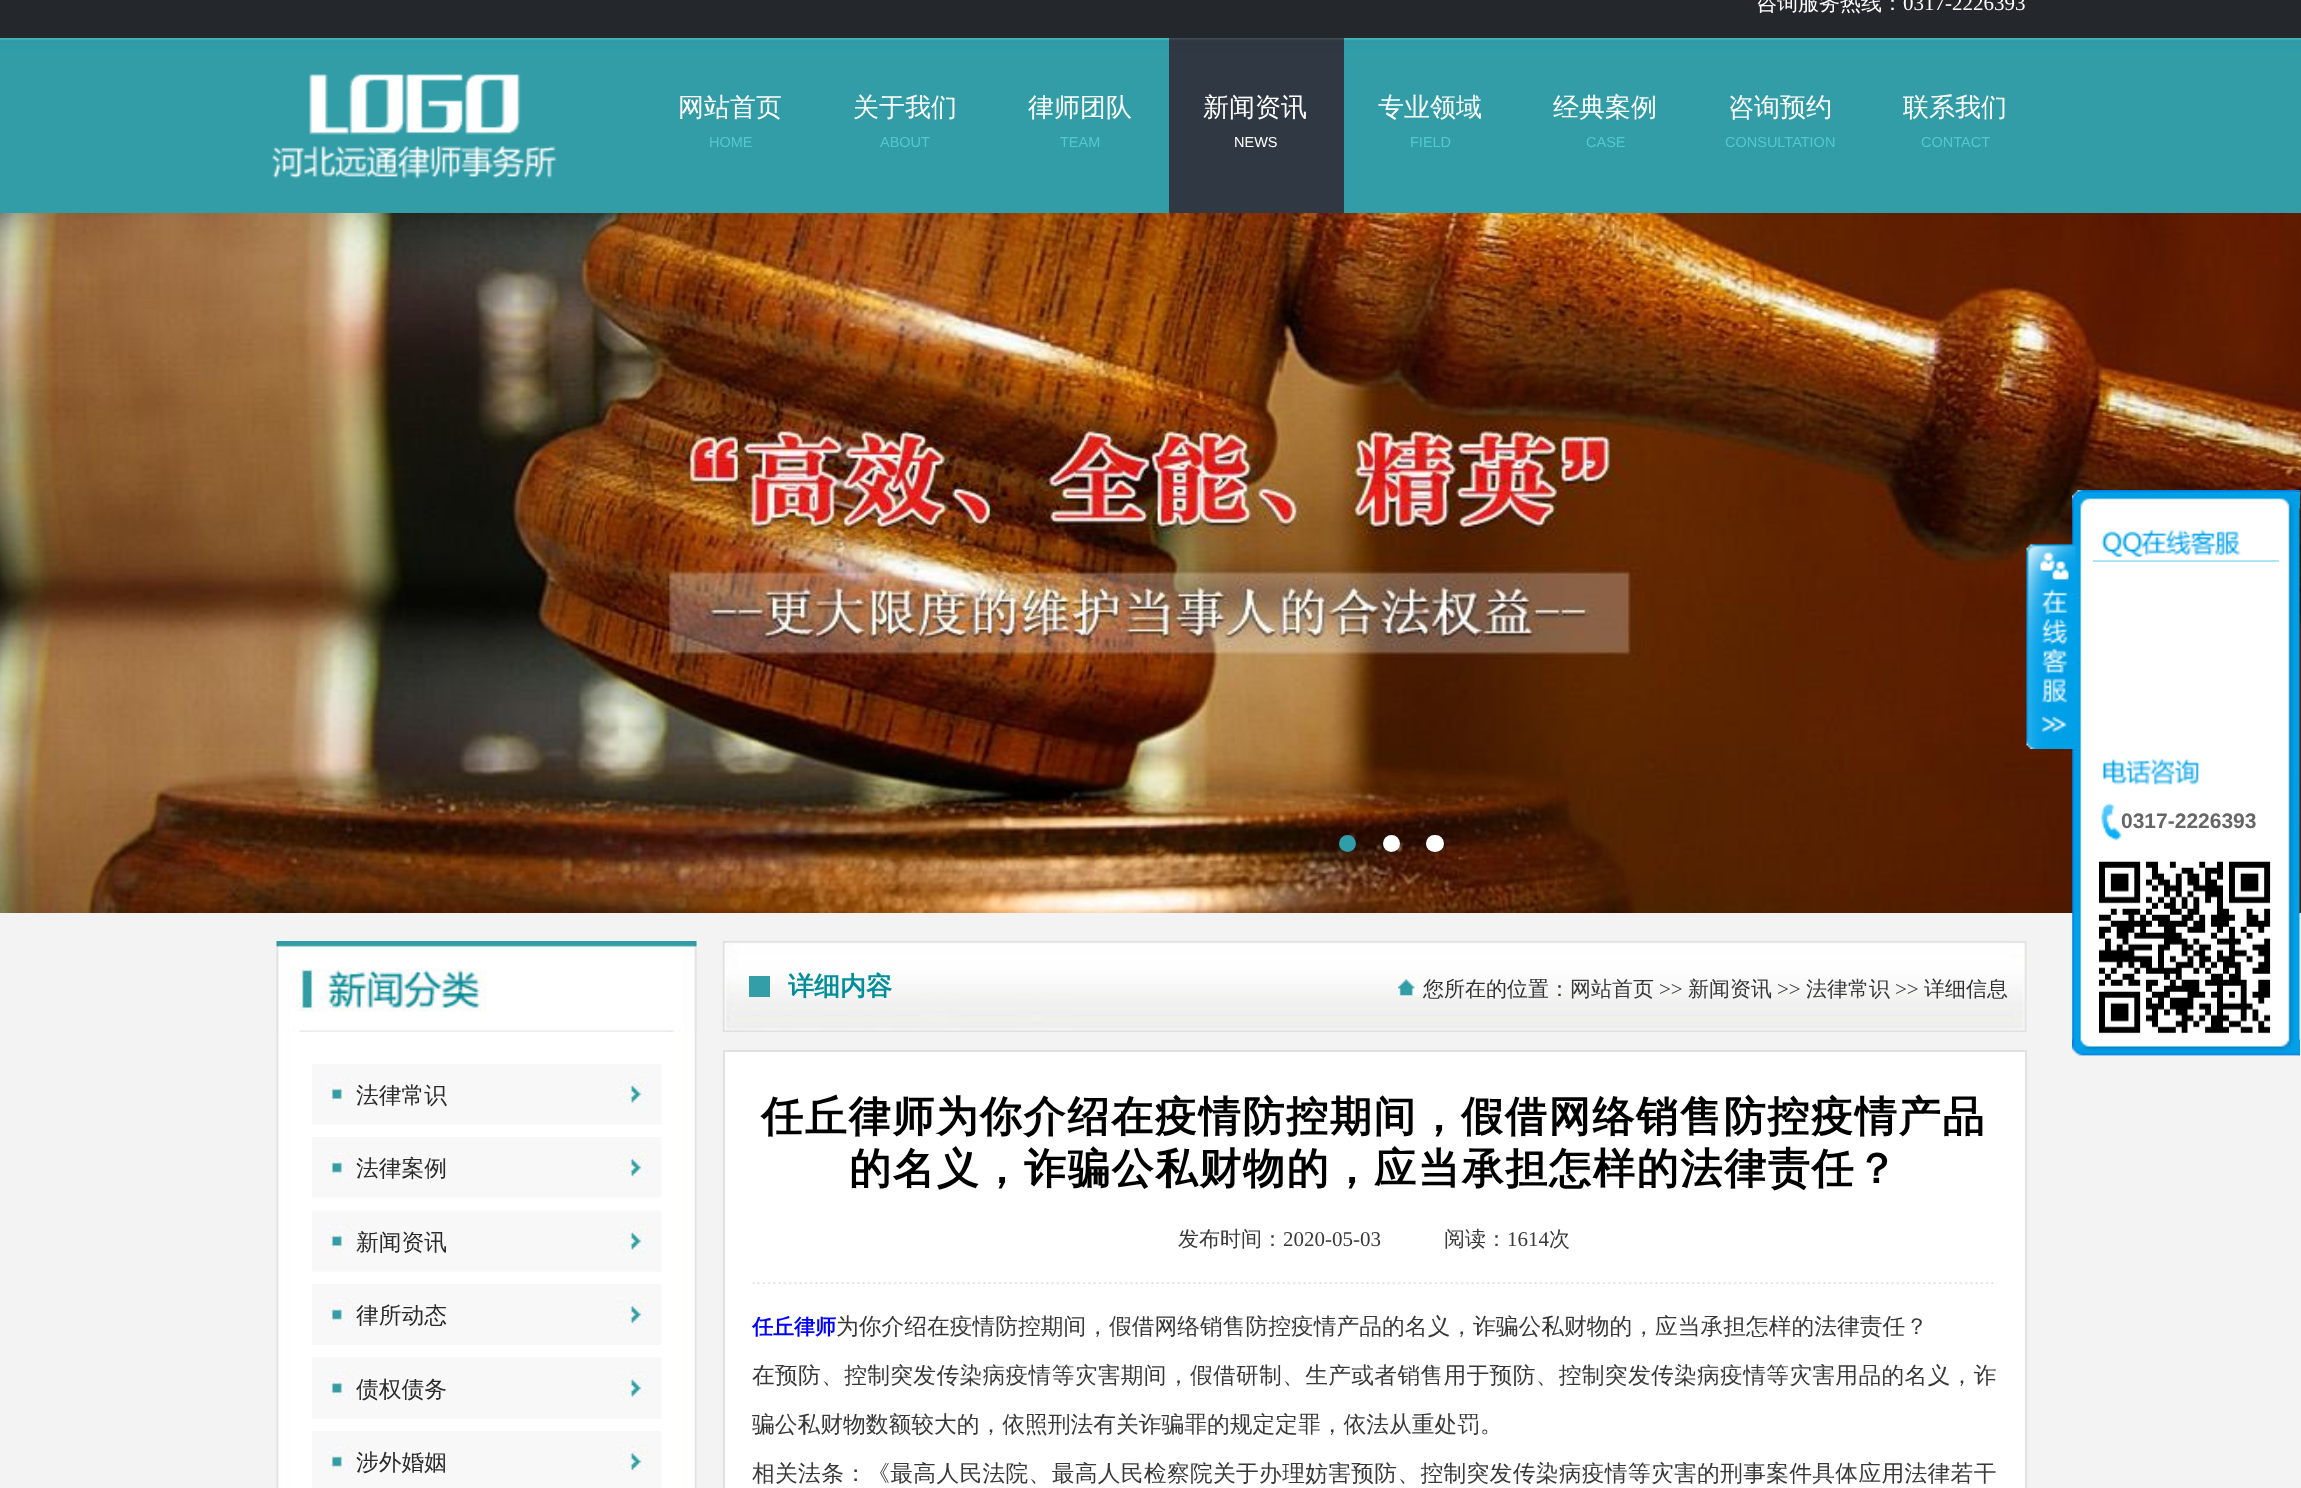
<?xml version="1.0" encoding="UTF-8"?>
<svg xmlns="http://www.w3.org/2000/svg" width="2301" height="1488">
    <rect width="100%" height="100%" fill="#F3F3F3"/>
    <rect x="0" y="0" width="2301" height="38" fill="#24272C"/>
    <text x="1756" y="10" font-family="WenQuanYi Zen Hei" font-size="21" font-weight="500" fill="#FFFFFF">咨询服务热线：</text>
    <text x="1903" y="10" font-family="Liberation Serif" font-size="21" fill="#FFFFFF">0317-2226393</text>
    <image x="0" y="38" width="2301" height="175" href="img_01.png"/>
    <image x="271" y="74" width="286" height="105" href="img_02.png"/>
    <text x="678" y="116" font-family="WenQuanYi Zen Hei" font-size="26" font-weight="500" fill="#FFFFFF">网站首页</text>
    <text x="709" y="147" font-family="Liberation Sans" font-size="14.5" fill="#54C8D1">HOME</text>
    <text x="853" y="116" font-family="WenQuanYi Zen Hei" font-size="26" font-weight="500" fill="#FFFFFF">关于我们</text>
    <text x="880" y="147" font-family="Liberation Sans" font-size="14.5" fill="#54C8D1">ABOUT</text>
    <text x="1028" y="116" font-family="WenQuanYi Zen Hei" font-size="26" font-weight="500" fill="#FFFFFF">律师团队</text>
    <text x="1060" y="147" font-family="Liberation Sans" font-size="14.5" fill="#54C8D1">TEAM</text>
    <image x="1169" y="38" width="175" height="175" href="img_03.png"/>
    <text x="1203" y="116" font-family="WenQuanYi Zen Hei" font-size="26" font-weight="500" fill="#FFFFFF">新闻资讯</text>
    <text x="1234" y="147" font-family="Liberation Sans" font-size="14.5" fill="#FFFFFF">NEWS</text>
    <text x="1378" y="116" font-family="WenQuanYi Zen Hei" font-size="26" font-weight="500" fill="#FFFFFF">专业领域</text>
    <text x="1410" y="147" font-family="Liberation Sans" font-size="14.5" fill="#54C8D1">FIELD</text>
    <text x="1553" y="116" font-family="WenQuanYi Zen Hei" font-size="26" font-weight="500" fill="#FFFFFF">经典案例</text>
    <text x="1586" y="147" font-family="Liberation Sans" font-size="14.5" fill="#54C8D1">CASE</text>
    <text x="1728" y="116" font-family="WenQuanYi Zen Hei" font-size="26" font-weight="500" fill="#FFFFFF">咨询预约</text>
    <text x="1725" y="147" font-family="Liberation Sans" font-size="14.5" fill="#54C8D1">CONSULTATION</text>
    <text x="1903" y="116" font-family="WenQuanYi Zen Hei" font-size="26" font-weight="500" fill="#FFFFFF">联系我们</text>
    <text x="1921" y="147" font-family="Liberation Sans" font-size="14.5" fill="#54C8D1">CONTACT</text>
    <image x="0" y="213" width="2301" height="700" href="img_04.png"/>
    <circle cx="1347.5" cy="843.5" r="8.5" fill="#319DA9"/>
    <circle cx="1391.5" cy="843.5" r="8.5" fill="#FFFFFF"/>
    <rect x="1426" y="835" width="18" height="17" rx="8.5" fill="#FFFFFF"/>
    <image x="2072" y="1039" width="228" height="17" href="img_06.png"/>
    <image x="2072" y="508" width="228" height="532" href="img_08.png"/>
    <image x="2026" y="543" width="50" height="206" href="img_05.png"/>
    <image x="2072" y="490" width="228" height="18" href="img_07.png"/>
    <rect x="2093" y="560" width="186" height="2" fill="#ACE5F9"/>
    <image x="2101" y="529" width="140" height="28" href="img_09.png"/>
    <image x="2103" y="758" width="97" height="27" href="img_10.png"/>
    <image x="2101" y="803" width="21" height="38" href="img_11.png"/>
    <text x="2121" y="828" font-family="Liberation Sans" font-size="21" font-weight="700" fill="#666666">0317-2226393</text>
    <image x="2099" y="861" width="172" height="173" href="img_12.png"/>
    <image x="276" y="941" width="421" height="547" href="img_13.png"/>
    <image x="276" y="941" width="421" height="91" href="img_14.png"/>
    <image x="312" y="1064" width="350" height="61" href="img_15.png"/>
    <text x="356" y="1103" font-family="WenQuanYi Zen Hei" font-size="22.75" font-weight="500" fill="#2A2A2A">法律常识</text>
    <image x="312" y="1137" width="350" height="61" href="img_16.png"/>
    <text x="356" y="1176" font-family="WenQuanYi Zen Hei" font-size="22.75" font-weight="500" fill="#2A2A2A">法律案例</text>
    <image x="312" y="1210" width="350" height="62" href="img_17.png"/>
    <text x="356" y="1250" font-family="WenQuanYi Zen Hei" font-size="22.75" font-weight="500" fill="#2A2A2A">新闻资讯</text>
    <image x="312" y="1284" width="350" height="61" href="img_18.png"/>
    <text x="356" y="1323" font-family="WenQuanYi Zen Hei" font-size="22.75" font-weight="500" fill="#2A2A2A">律所动态</text>
    <image x="312" y="1357" width="350" height="62" href="img_19.png"/>
    <text x="356" y="1397" font-family="WenQuanYi Zen Hei" font-size="22.75" font-weight="500" fill="#2A2A2A">债权债务</text>
    <image x="312" y="1431" width="350" height="57" href="img_20.png"/>
    <text x="356" y="1470" font-family="WenQuanYi Zen Hei" font-size="22.75" font-weight="500" fill="#2A2A2A">涉外婚姻</text>
    <image x="722" y="941" width="1305" height="91" href="img_21.png"/>
    <rect x="749" y="976" width="21" height="21" fill="#339EA8"/>
    <text x="788" y="995" font-family="WenQuanYi Zen Hei" font-size="26" font-weight="700" fill="#008E9B">详细内容</text>
    <image x="1398" y="974" width="25" height="22" href="img_22.png"/>
    <text x="1423" y="996" font-family="WenQuanYi Zen Hei" font-size="21" font-weight="500" fill="#313131">您所在的位置：</text>
    <text x="1570" y="996" font-family="WenQuanYi Zen Hei" font-size="21" font-weight="500" fill="#383838">网站首页</text>
    <text x="1659" y="996" font-family="Liberation Serif" font-size="21" fill="#313131">&gt;&gt;</text>
    <text x="1688" y="996" font-family="WenQuanYi Zen Hei" font-size="21" font-weight="500" fill="#383838">新闻资讯</text>
    <text x="1777" y="996" font-family="Liberation Serif" font-size="21" fill="#313131">&gt;&gt;</text>
    <text x="1806" y="996" font-family="WenQuanYi Zen Hei" font-size="21" font-weight="500" fill="#383838">法律常识</text>
    <text x="1895" y="996" font-family="Liberation Serif" font-size="21" fill="#313131">&gt;&gt;</text>
    <text x="1924" y="996" font-family="WenQuanYi Zen Hei" font-size="21" font-weight="500" fill="#313131">详细信息</text>
    <rect x="724" y="1051" width="1302" height="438" fill="#FFFFFF" stroke="#E1E1E1" stroke-width="2"/>
    <text x="761" y="1131" font-family="WenQuanYi Zen Hei" font-size="42" font-weight="700" letter-spacing="1.75" fill="#000000">任丘律师为你介绍在疫情防控期间，假借网络销售防控疫情产品</text>
    <text x="849" y="1183" font-family="WenQuanYi Zen Hei" font-size="42" font-weight="700" letter-spacing="1.75" fill="#000000">的名义，诈骗公私财物的，应当承担怎样的法律责任？</text>
    <text x="1178" y="1246" font-family="WenQuanYi Zen Hei" font-size="21" font-weight="500" fill="#383838">发布时间：</text>
    <text x="1283" y="1246" font-family="Liberation Serif" font-size="21" fill="#383838">2020-05-03</text>
    <text x="1444" y="1246" font-family="WenQuanYi Zen Hei" font-size="21" font-weight="500" fill="#383838">阅读：</text>
    <text x="1507" y="1246" font-family="Liberation Serif" font-size="21" fill="#383838">1614</text>
    <text x="1549" y="1246" font-family="WenQuanYi Zen Hei" font-size="21" font-weight="500" fill="#383838">次</text>
    <image x="752" y="1282" width="1245" height="2" href="img_23.png"/>
    <text x="752" y="1334" font-family="WenQuanYi Zen Hei" font-size="21" font-weight="700" fill="#0000FF">任丘律师</text>
    <text x="836" y="1334" font-family="WenQuanYi Zen Hei" font-size="22.75" font-weight="500" fill="#383838">为你介绍在疫情防控期间，假借网络销售防控疫情产品的名义，诈骗公私财物的，应当承担怎样的法律责任？</text>
    <text x="752" y="1383" font-family="WenQuanYi Zen Hei" font-size="22.75" font-weight="500" letter-spacing="0.3" fill="#383838">在预防、控制突发传染病疫情等灾害期间，假借研制、生产或者销售用于预防、控制突发传染病疫情等灾害用品的名义，诈</text>
    <text x="752" y="1432" font-family="WenQuanYi Zen Hei" font-size="22.75" font-weight="500" fill="#383838">骗公私财物数额较大的，依照刑法有关诈骗罪的规定定罪，依法从重处罚。</text>
    <text x="752" y="1481" font-family="WenQuanYi Zen Hei" font-size="22.75" font-weight="500" letter-spacing="0.3" fill="#383838">相关法条：《最高人民法院、最高人民检察院关于办理妨害预防、控制突发传染病疫情等灾害的刑事案件具体应用法律若干</text>
</svg>
